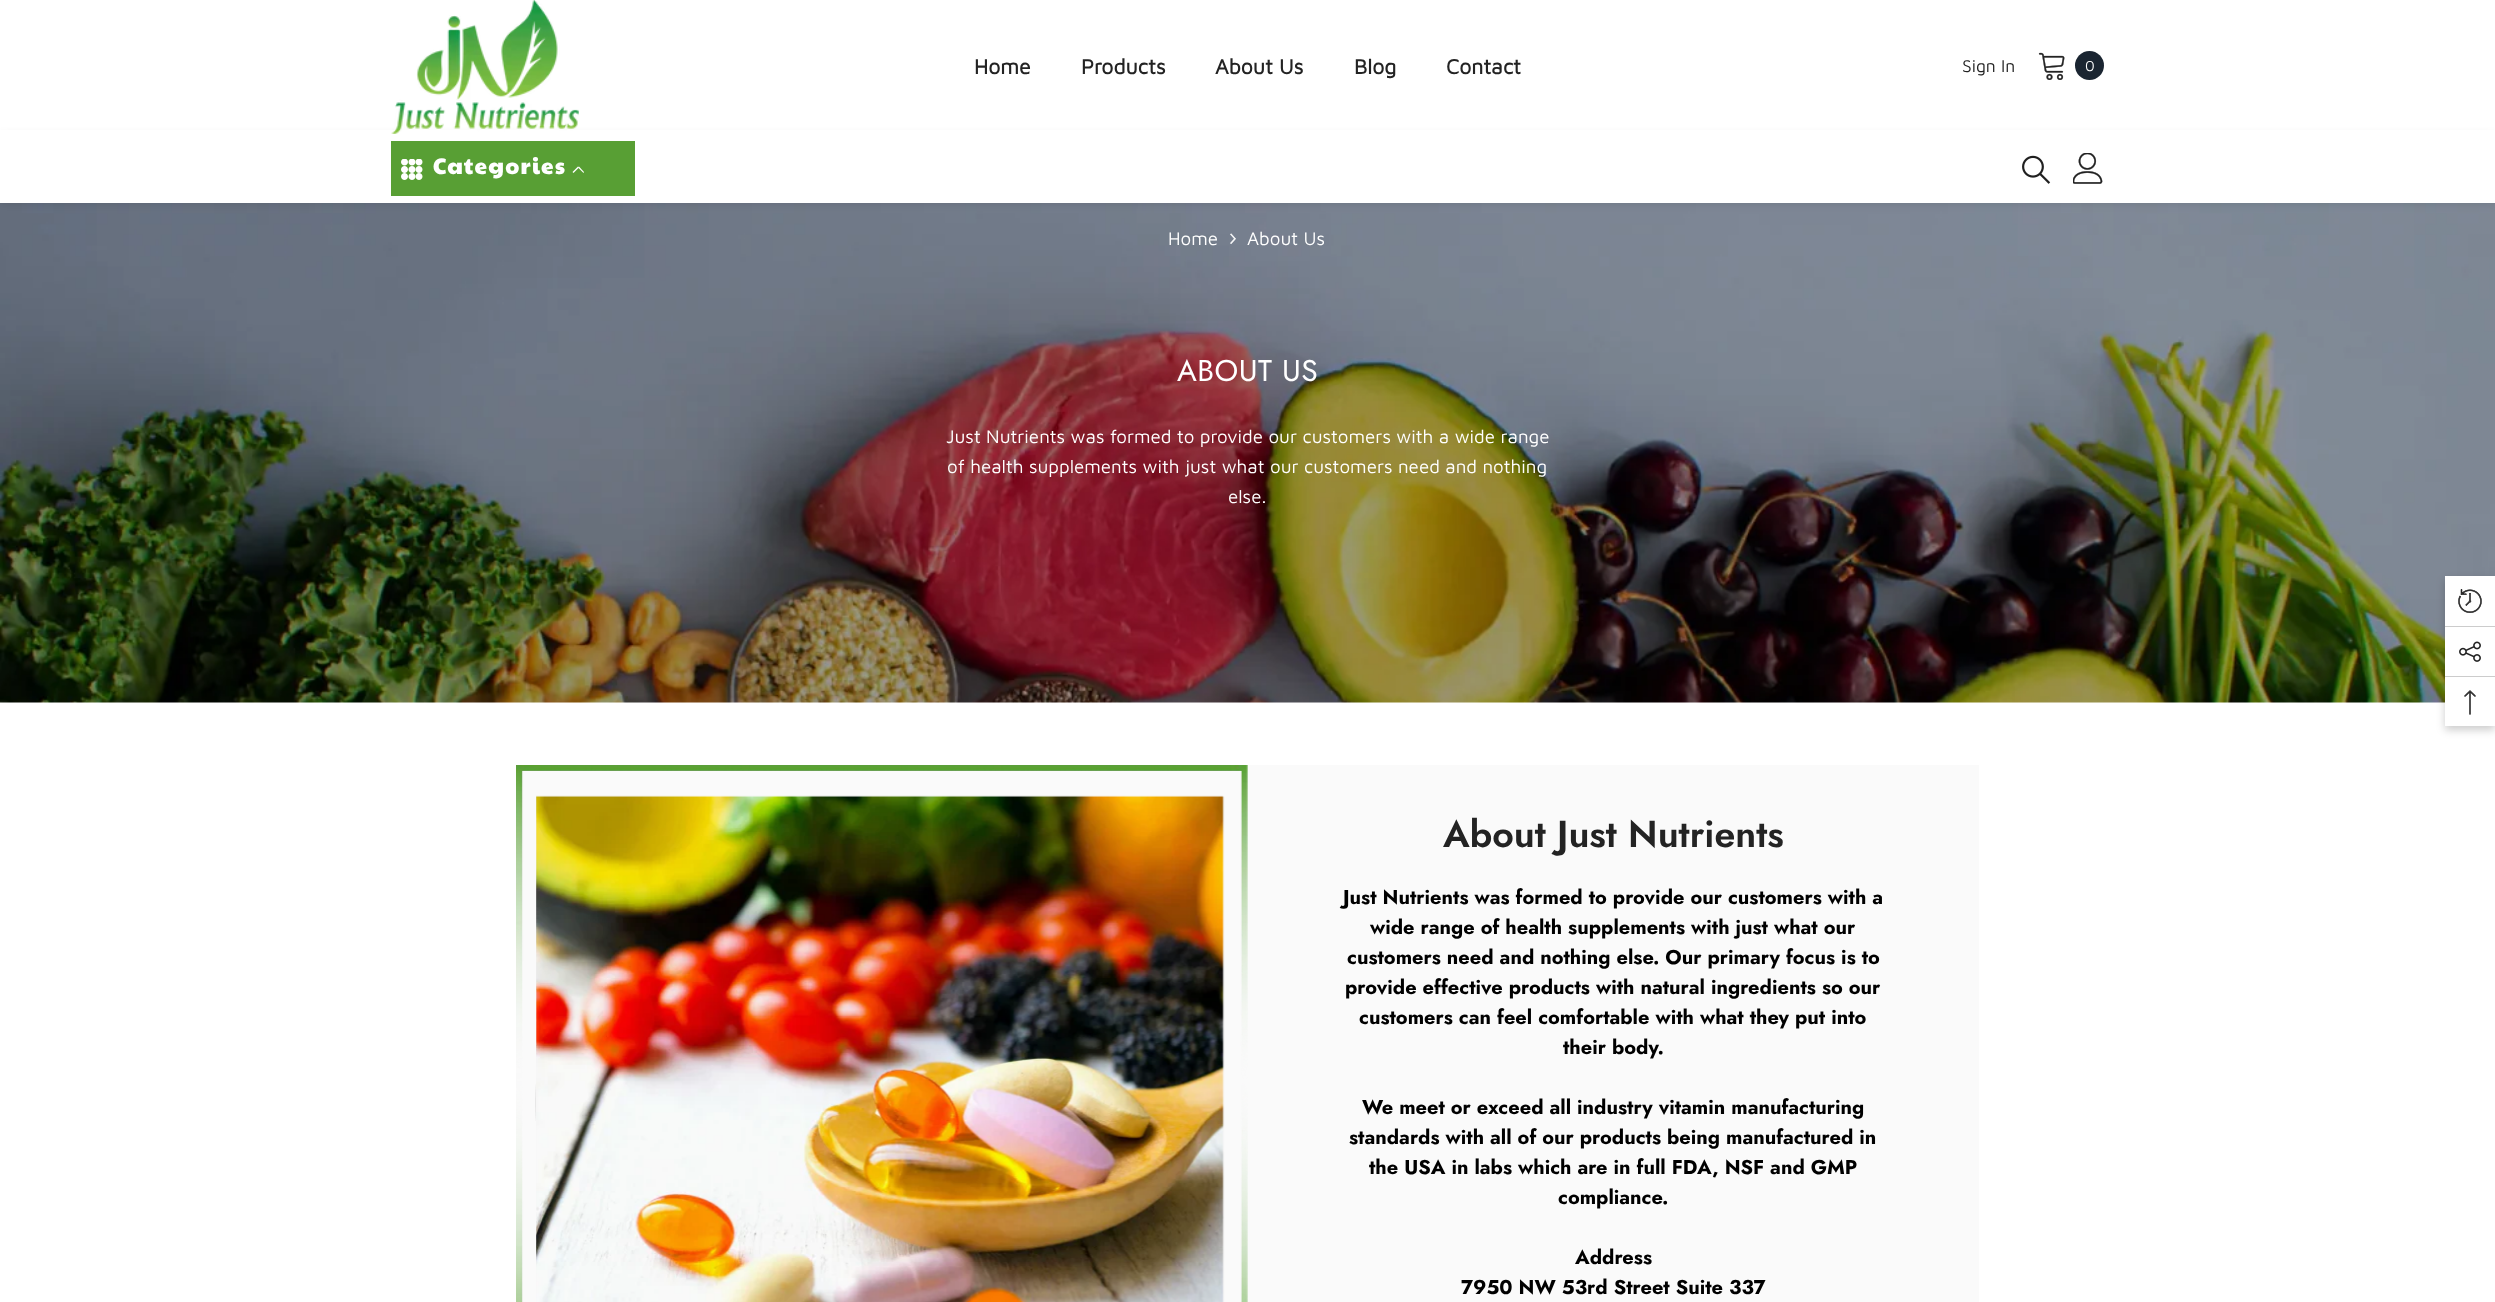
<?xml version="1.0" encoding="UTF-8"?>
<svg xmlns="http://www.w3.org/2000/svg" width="2495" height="1302">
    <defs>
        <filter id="blur1" x="-50%" y="-200%" width="200%" height="500%"><feGaussianBlur stdDeviation="4"/></filter>
        <filter id="blur2" x="-50%" y="-200%" width="200%" height="500%"><feGaussianBlur stdDeviation="4.5"/></filter>
    </defs>
    <rect width="100%" height="100%" fill="#FFFFFF"/>
    <image x="0" y="203" width="2495" height="500" href="img_06.png"/>
    <rect x="0" y="135" width="2495" height="69" fill="#000000" fill-opacity="0.1" filter="url(#blur1)"/>
    <rect x="0" y="130" width="2495" height="73" fill="#FFFFFF"/>
    <image x="391" y="0" width="188" height="134" href="img_01.png"/>
    <text x="974" y="74" font-family="Maven Pro" font-size="21.25" font-weight="700" fill="#232323">Home</text>
    <text x="1081" y="74" font-family="Maven Pro" font-size="21.25" font-weight="700" fill="#232323">Products</text>
    <text x="1215" y="74" font-family="Maven Pro" font-size="21.25" font-weight="700" fill="#232323">About Us</text>
    <text x="1354" y="74" font-family="Maven Pro" font-size="21.25" font-weight="700" fill="#232323">Blog</text>
    <text x="1446" y="74" font-family="Maven Pro" font-size="21.25" font-weight="700" fill="#232323">Contact</text>
    <text x="1962" y="72" font-family="Maven Pro" font-size="17.5" fill="#232323">Sign In</text>
    <image x="2038" y="52" width="27" height="28" href="img_02.png"/>
    <circle cx="2089.5" cy="65.5" r="14.5" fill="#1A2531"/>
    <text x="2085" y="71" font-family="Maven Pro" font-size="15" fill="#FFFFFF">0</text>
    <rect x="391" y="141" width="244" height="55" fill="#589F34"/>
    <image x="401" y="159" width="22" height="21" href="img_03.png"/>
    <text x="433" y="174" font-family="Paytone One" font-size="22.5" letter-spacing="1.25" fill="#FFFFFF">Categories</text>
    <path d="M 572.5 172 L 578 166.5 L 579 167.5 L 573.5 173 Z" fill="#FFFFFF"/>
    <path d="M 583.5 173 L 578 167.5 L 579 166.5 L 584 172 Z" fill="#FFFFFF"/>
    <image x="2022" y="155" width="29" height="29" href="img_04.png"/>
    <image x="2073" y="153" width="30" height="31" href="img_05.png"/>
    <text x="1168" y="245" font-family="Maven Pro" font-size="18.75" fill="#FFFFFF">Home</text>
    <image x="1230" y="233" width="6" height="11" href="img_07.png"/>
    <text x="1247" y="245" font-family="Maven Pro" font-size="18.75" fill="#FFFFFF">About Us</text>
    <text x="1177" y="381" font-family="Jost" font-size="30" letter-spacing="0.5" fill="#FFFFFF">ABOUT US</text>
    <text x="946" y="443" font-family="Maven Pro" font-size="18.75" fill="#FFFFFF">Just Nutrients was formed to provide our customers with a wide range</text>
    <text x="947" y="473" font-family="Maven Pro" font-size="18.75" fill="#FFFFFF">of health supplements with just what our customers need and nothing</text>
    <text x="1228" y="503" font-family="Maven Pro" font-size="18.75" fill="#FFFFFF">else.</text>
    <rect x="516" y="765" width="1463" height="537" fill="#FAFAFA"/>
    <image x="516" y="765" width="732" height="537" href="img_08.png"/>
    <text x="1443" y="847" font-family="Jost" font-size="37.5" font-weight="600" fill="#232323">About Just Nutrients</text>
    <text x="1343" y="904" font-family="Jost" font-size="20" font-weight="700" fill="#000000">Just Nutrients was formed to provide our customers with a</text>
    <text x="1370" y="934" font-family="Jost" font-size="20" font-weight="700" fill="#000000">wide range of health supplements with just what our</text>
    <text x="1347" y="964" font-family="Jost" font-size="20" font-weight="700" fill="#000000">customers need and nothing else. Our primary focus is to</text>
    <text x="1345" y="994" font-family="Jost" font-size="20" font-weight="700" fill="#000000">provide effective products with natural ingredients so our</text>
    <text x="1359" y="1024" font-family="Jost" font-size="20" font-weight="700" fill="#000000">customers can feel comfortable with what they put into</text>
    <text x="1563" y="1054" font-family="Jost" font-size="20" font-weight="700" fill="#000000">their body.</text>
    <text x="1362" y="1114" font-family="Jost" font-size="20" font-weight="700" fill="#000000">We meet or exceed all industry vitamin manufacturing</text>
    <text x="1349" y="1144" font-family="Jost" font-size="20" font-weight="700" fill="#000000">standards with all of our products being manufactured in</text>
    <text x="1369" y="1174" font-family="Jost" font-size="20" font-weight="700" fill="#000000">the USA in labs which are in full FDA, NSF and GMP</text>
    <text x="1558" y="1204" font-family="Jost" font-size="20" font-weight="700" fill="#000000">compliance.</text>
    <text x="1575" y="1264" font-family="Jost" font-size="20" font-weight="700" fill="#000000">Address</text>
    <text x="1461" y="1294" font-family="Jost" font-size="20" font-weight="700" fill="#000000">7950 NW 53rd Street Suite 337</text>
    <rect x="2445" y="580" width="50" height="150" fill="#000000" fill-opacity="0.2" filter="url(#blur2)"/>
    <rect x="2445" y="576" width="50" height="150" fill="#FFFFFF"/>
    <image x="2458" y="589" width="24" height="24" href="img_09.png"/>
    <rect x="2445" y="626" width="50" height="1" fill="#CCCCCC"/>
    <image x="2459" y="641" width="22" height="21" href="img_10.png"/>
    <rect x="2445" y="676" width="50" height="1" fill="#CCCCCC"/>
    <image x="2464" y="690" width="12" height="25" href="img_11.png"/>
</svg>
